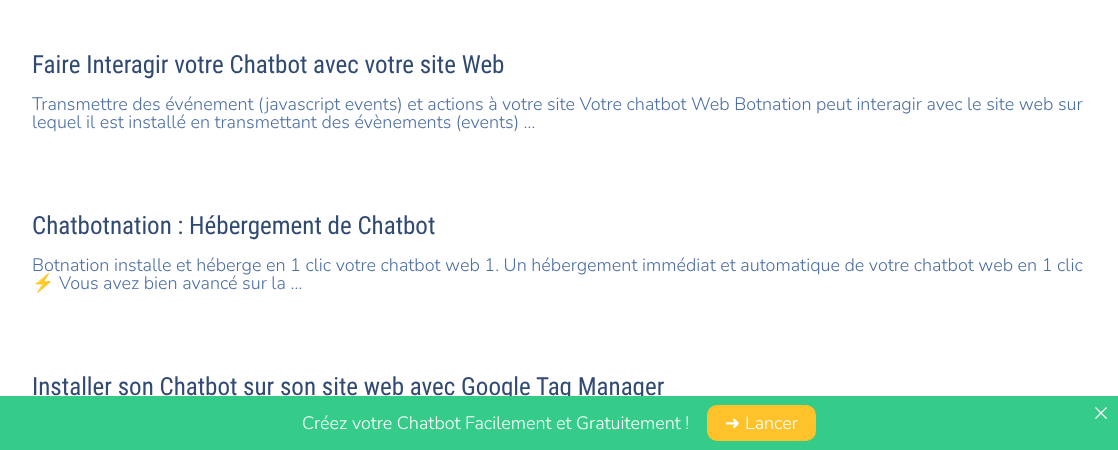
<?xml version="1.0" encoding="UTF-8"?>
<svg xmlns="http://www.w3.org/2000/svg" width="1118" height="450">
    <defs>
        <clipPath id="clip1"><rect x="32" y="206" width="1054" height="111"/></clipPath>
    </defs>
    <rect width="100%" height="100%" fill="#FFFFFF"/>
    <text x="32" y="73" font-family="Roboto Condensed" font-size="25" fill="#304A73">Faire Interagir votre Chatbot avec votre site Web</text>
    <text font-family="Nunito" font-size="18" font-weight="300" fill="#4D6FA5">
        <tspan x="32" y="110">Transmettre des événement (javascript events) et actions à votre site Votre chatbot Web Botnation peut interagir avec le site web sur</tspan>
        <tspan x="32" y="128">lequel il est installé en transmettant des évènements (events) …</tspan>
    </text>
    <text x="32" y="234" font-family="Roboto Condensed" font-size="25" fill="#304A73">Chatbotnation : Hébergement de Chatbot</text>
    <text x="32" y="271" font-family="Nunito" font-size="18" font-weight="300" fill="#4D6FA5">Botnation installe et héberge en 1 clic votre chatbot web 1. Un hébergement immédiat et automatique de votre chatbot web en 1 clic</text>
    <g clip-path="url(#clip1)">
        <text x="32" y="289" font-family="Noto Color Emoji" font-size="18" fill="#4D6FA5">⚡️</text>
    </g>
    <text x="59" y="289" font-family="Nunito" font-size="18" font-weight="300" fill="#4D6FA5">Vous avez bien avancé sur la …</text>
    <text x="32" y="395" font-family="Roboto Condensed" font-size="25" fill="#304A73">Installer son Chatbot sur son site web avec Google Tag Manager</text>
    <rect x="0" y="396" width="1118" height="54" fill="#35CC8A"/>
    <image x="1095" y="407" width="12" height="12" href="img_01.png"/>
    <text x="302" y="429" font-family="Nunito" font-size="18" font-weight="300" fill="#FFFFFF">Créez votre Chatbot Facilement et Gratuitement !</text>
    <rect x="707" y="405" width="109" height="36" rx="10" fill="#FFC22A"/>
    <text x="725" y="429" font-family="DejaVu Sans" font-size="18" fill="#FFFFFF">➜</text>
    <text x="745" y="429" font-family="Nunito" font-size="18" font-weight="300" fill="#FFFFFF">Lancer</text>
</svg>
